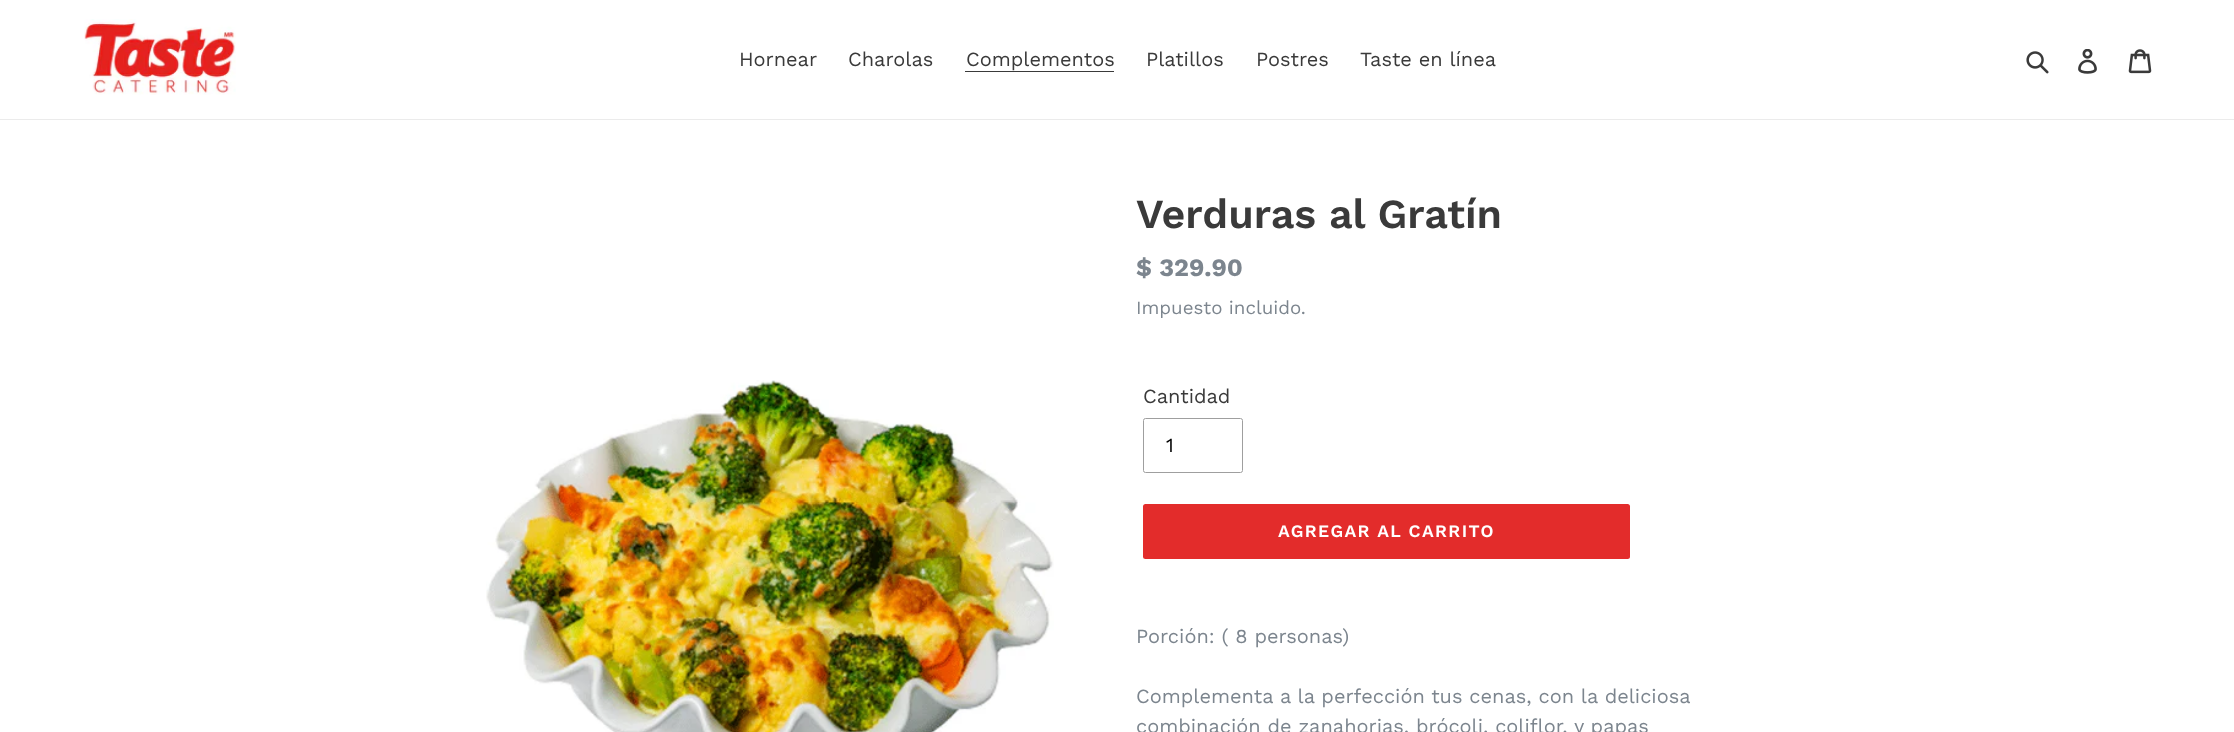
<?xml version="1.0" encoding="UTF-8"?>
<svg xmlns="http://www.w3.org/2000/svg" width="2234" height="732">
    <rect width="100%" height="100%" fill="#FFFFFF"/>
    <rect x="0" y="119" width="2234" height="1" fill="#EBEBEB"/>
    <image x="84" y="19" width="152" height="76" href="img_01.png"/>
    <text x="739" y="66" font-family="Work Sans" font-size="20" fill="#3A3A3A">Hornear</text>
    <text x="848" y="66" font-family="Work Sans" font-size="20" fill="#3A3A3A">Charolas</text>
    <text x="966" y="66" font-family="Work Sans" font-size="20" fill="#3A3A3A">Complementos</text>
    <rect x="965" y="71" width="149" height="1" fill="#3A3A3A"/>
    <text x="1146" y="66" font-family="Work Sans" font-size="20" fill="#3A3A3A">Platillos</text>
    <text x="1256" y="66" font-family="Work Sans" font-size="20" fill="#3A3A3A">Postres</text>
    <text x="1360" y="66" font-family="Work Sans" font-size="20" fill="#3A3A3A">Taste en línea</text>
    <image x="2026" y="51" width="23" height="23" href="img_02.png"/>
    <image x="2078" y="49" width="19" height="25" href="img_03.png"/>
    <image x="2128" y="49" width="24" height="25" href="img_04.png"/>
    <image x="486" y="380" width="568" height="352" href="img_05.png"/>
    <text x="1136" y="228" font-family="Work Sans" font-size="41.25" font-weight="600" fill="#3A3A3A">Verduras al Gratín</text>
    <text x="1136" y="276" font-family="Work Sans" font-size="25" font-weight="700" fill="#7C858E">$ 329.90</text>
    <text x="1136" y="314" font-family="Work Sans" font-size="18.75" fill="#7C858E">Impuesto incluido.</text>
    <text x="1143" y="403" font-family="Work Sans" font-size="20" fill="#3A3A3A">Cantidad</text>
    <rect x="1143.5" y="418.5" width="99" height="54" rx="2" fill="none" stroke="#9F9F9F"/>
    <text x="1166" y="452" font-family="Work Sans" font-size="20" fill="#000000">1</text>
    <rect x="1143" y="504" width="487" height="55" rx="2.5" fill="#E32C2B"/>
    <text x="1278" y="537" font-family="Work Sans" font-size="17.5" font-weight="600" letter-spacing="1.4" fill="#FFFFFF">AGREGAR AL CARRITO</text>
    <text x="1136" y="643" font-family="Work Sans" font-size="20" fill="#7C858E">Porción: ( 8 personas)</text>
    <text font-family="Work Sans" font-size="20" fill="#7C858E">
        <tspan x="1136" y="703">Complementa a la perfección tus cenas, con la deliciosa</tspan>
        <tspan x="1136" y="733">combinación de zanahorias, brócoli, coliflor, y papas</tspan>
    </text>
</svg>
